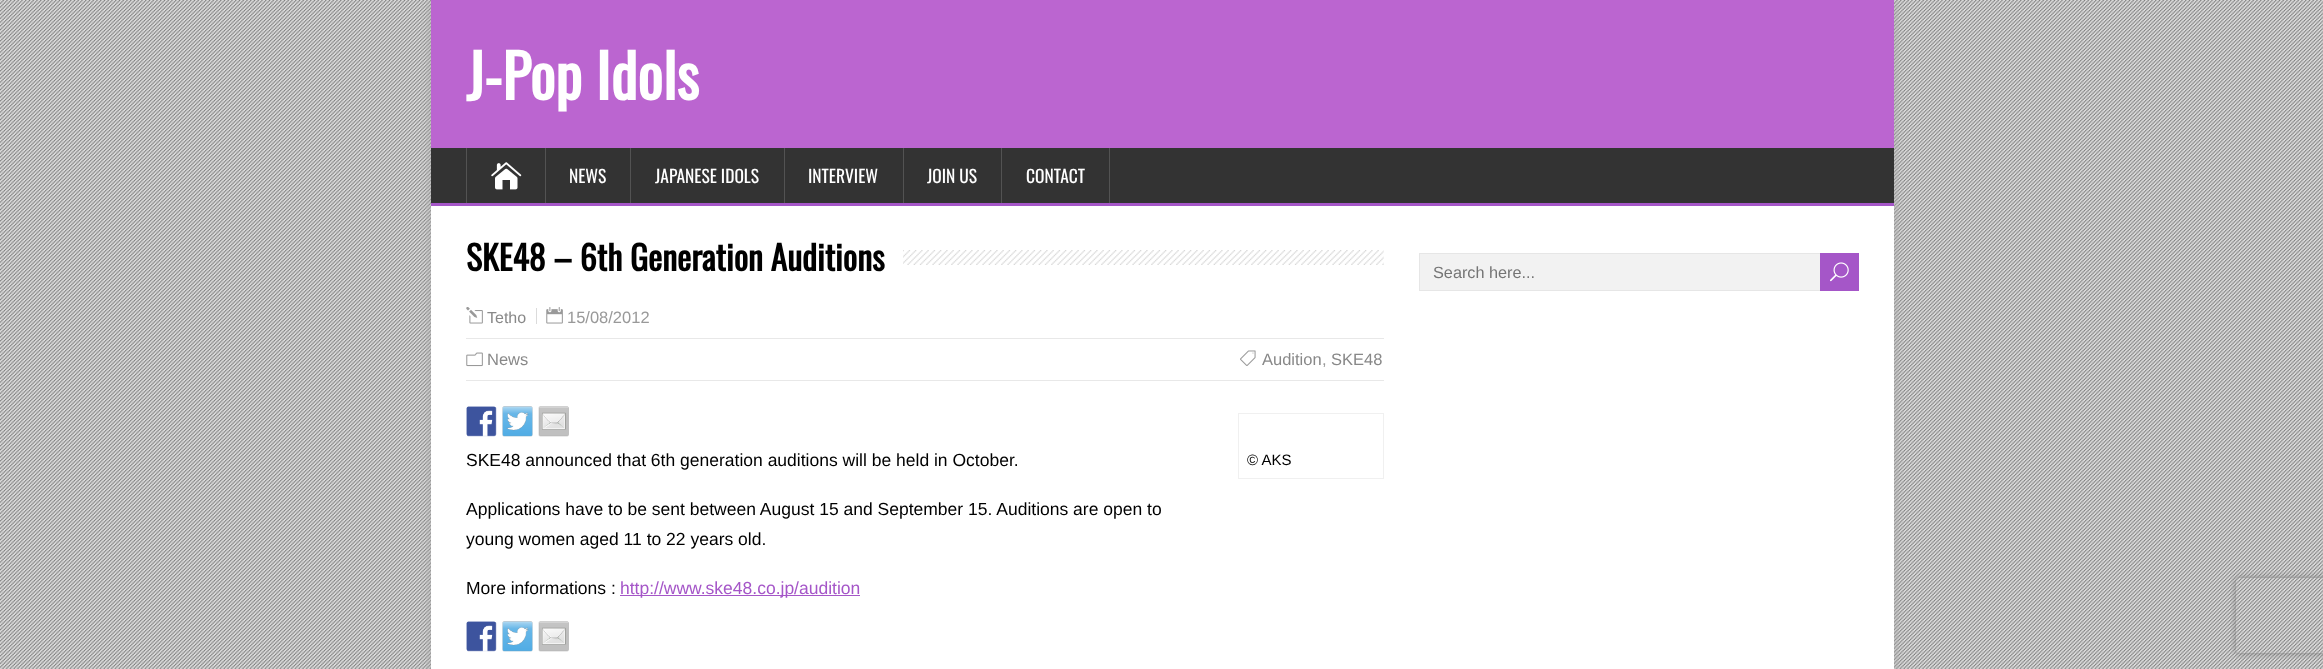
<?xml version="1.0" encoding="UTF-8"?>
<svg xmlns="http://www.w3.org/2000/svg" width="2323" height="669">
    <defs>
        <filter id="blur1" x="-50%" y="-200%" width="200%" height="500%"><feGaussianBlur stdDeviation="6"/></filter>
        <clipPath id="clip1"><path d="M 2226 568 H 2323 V 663 H 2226 Z M 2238.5 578 H 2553.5 C 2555 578 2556 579 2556 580.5 V 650.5 C 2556 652 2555 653 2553.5 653 H 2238.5 C 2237 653 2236 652 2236 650.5 V 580.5 C 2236 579 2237 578 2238.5 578 Z" clip-rule="evenodd"/></clipPath>
        <filter id="blur2" x="-50%" y="-200%" width="200%" height="500%"><feGaussianBlur stdDeviation="3"/></filter>
    </defs>
    <rect width="100%" height="100%" fill="#DEDEDE"/>
    <image x="0" y="0" width="2323" height="669" href="img_01.png"/>
    <rect x="431" y="0" width="1463" height="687" fill="#AAAAAA" filter="url(#blur1)"/>
    <rect x="431" y="206" width="1463" height="463" fill="#FFFFFF"/>
    <rect x="431" y="0" width="1463" height="148" fill="#BB65D0"/>
    <text x="466" y="100" font-family="Oswald" font-size="60" font-weight="700" fill="#FFFFFF">J-Pop Idols</text>
    <rect x="431" y="148" width="1463" height="55" fill="#333333"/>
    <rect x="431" y="203" width="1463" height="3" fill="#A556C8"/>
    <rect x="545" y="148" width="1" height="55" fill="#535353"/>
    <rect x="466" y="148" width="1" height="55" fill="#535353"/>
    <image x="491" y="162" width="31" height="28" href="img_02.png"/>
    <rect x="630" y="148" width="1" height="55" fill="#535353"/>
    <text x="569" y="183" font-family="Oswald" font-size="17.5" fill="#FFFFFF">NEWS</text>
    <rect x="784" y="148" width="1" height="55" fill="#535353"/>
    <text x="655" y="183" font-family="Oswald" font-size="17.5" fill="#FFFFFF">JAPANESE IDOLS</text>
    <rect x="903" y="148" width="1" height="55" fill="#535353"/>
    <text x="808" y="183" font-family="Oswald" font-size="17.5" fill="#FFFFFF">INTERVIEW</text>
    <rect x="1001" y="148" width="1" height="55" fill="#535353"/>
    <text x="927" y="183" font-family="Oswald" font-size="17.5" fill="#FFFFFF">JOIN US</text>
    <rect x="1109" y="148" width="1" height="55" fill="#535353"/>
    <text x="1026" y="183" font-family="Oswald" font-size="17.5" fill="#FFFFFF">CONTACT</text>
    <image x="903" y="250" width="481" height="15" href="img_03.png"/>
    <text x="466" y="271" font-family="Oswald" font-size="33.75" font-weight="700" fill="#000000">SKE48 – 6th Generation Auditions</text>
    <image x="466" y="307" width="17" height="17" href="img_04.png"/>
    <text x="487" y="323" font-family="Liberation Sans" font-size="16" fill="#888888">Tetho</text>
    <image x="546" y="307" width="17" height="17" href="img_05.png"/>
    <text x="567" y="323" font-family="Liberation Sans" font-size="16.5" fill="#999999">15/08/2012</text>
    <rect x="536" y="308" width="1" height="16" fill="#DBDBDB"/>
    <rect x="466" y="338" width="918" height="1" fill="#E8E8E8"/>
    <rect x="466" y="380" width="918" height="1" fill="#E8E8E8"/>
    <image x="466" y="352" width="17" height="15" href="img_06.png"/>
    <text x="487" y="365" font-family="Liberation Sans" font-size="16.5" fill="#888888">News</text>
    <image x="1240" y="350" width="16" height="16" href="img_07.png"/>
    <text x="1262" y="365" font-family="Liberation Sans" font-size="16.5" fill="#888888">Audition</text>
    <text x="1322" y="365" font-family="Liberation Sans" font-size="16.5" fill="#999999">,</text>
    <text x="1331" y="365" font-family="Liberation Sans" font-size="16.5" fill="#888888">SKE48</text>
    <image x="466" y="406" width="31" height="31" href="img_08.png"/>
    <image x="502" y="406" width="31" height="31" href="img_09.png"/>
    <image x="538" y="406" width="31" height="31" href="img_10.png"/>
    <text x="466" y="466" font-family="Liberation Sans" font-size="17.5" fill="#000000">SKE48 announced that 6th generation auditions will be held in October.</text>
    <rect x="1238.5" y="413.5" width="145" height="65" fill="none" stroke="#F0F0F0"/>
    <text x="1247" y="465" font-family="Liberation Sans" font-size="15" fill="#000000">© AKS</text>
    <text font-family="Liberation Sans" font-size="17.5" fill="#000000">
        <tspan x="466" y="515">Applications have to be sent between August 15 and September 15. Auditions are open to</tspan>
        <tspan x="466" y="545">young women aged 11 to 22 years old.</tspan>
    </text>
    <text x="466" y="594" font-family="Liberation Sans" font-size="17.5" fill="#000000">More informations :</text>
    <rect x="620" y="595" width="240" height="1" fill="#A556C8"/>
    <text x="620" y="594" font-family="Liberation Sans" font-size="17.5" fill="#A556C8">http://www.ske48.co.jp/audition</text>
    <image x="466" y="621" width="31" height="31" href="img_08.png"/>
    <image x="502" y="621" width="31" height="31" href="img_09.png"/>
    <image x="538" y="621" width="31" height="31" href="img_10.png"/>
    <rect x="1420" y="254" width="400" height="36" fill="#F2F2F2"/>
    <rect x="1419.5" y="253.5" width="436" height="37" fill="none" stroke="#E6E6E6"/>
    <text x="1433" y="278" font-family="Liberation Sans" font-size="16.25" fill="#757575">Search here...</text>
    <rect x="1820" y="253" width="39" height="38" fill="#A556C8"/>
    <image x="1830" y="262" width="19" height="20" href="img_11.png"/>
    <g clip-path="url(#clip1)">
        <rect x="2236" y="578" width="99" height="75" rx="2.5" fill="#808080" filter="url(#blur2)"/>
    </g>
</svg>
